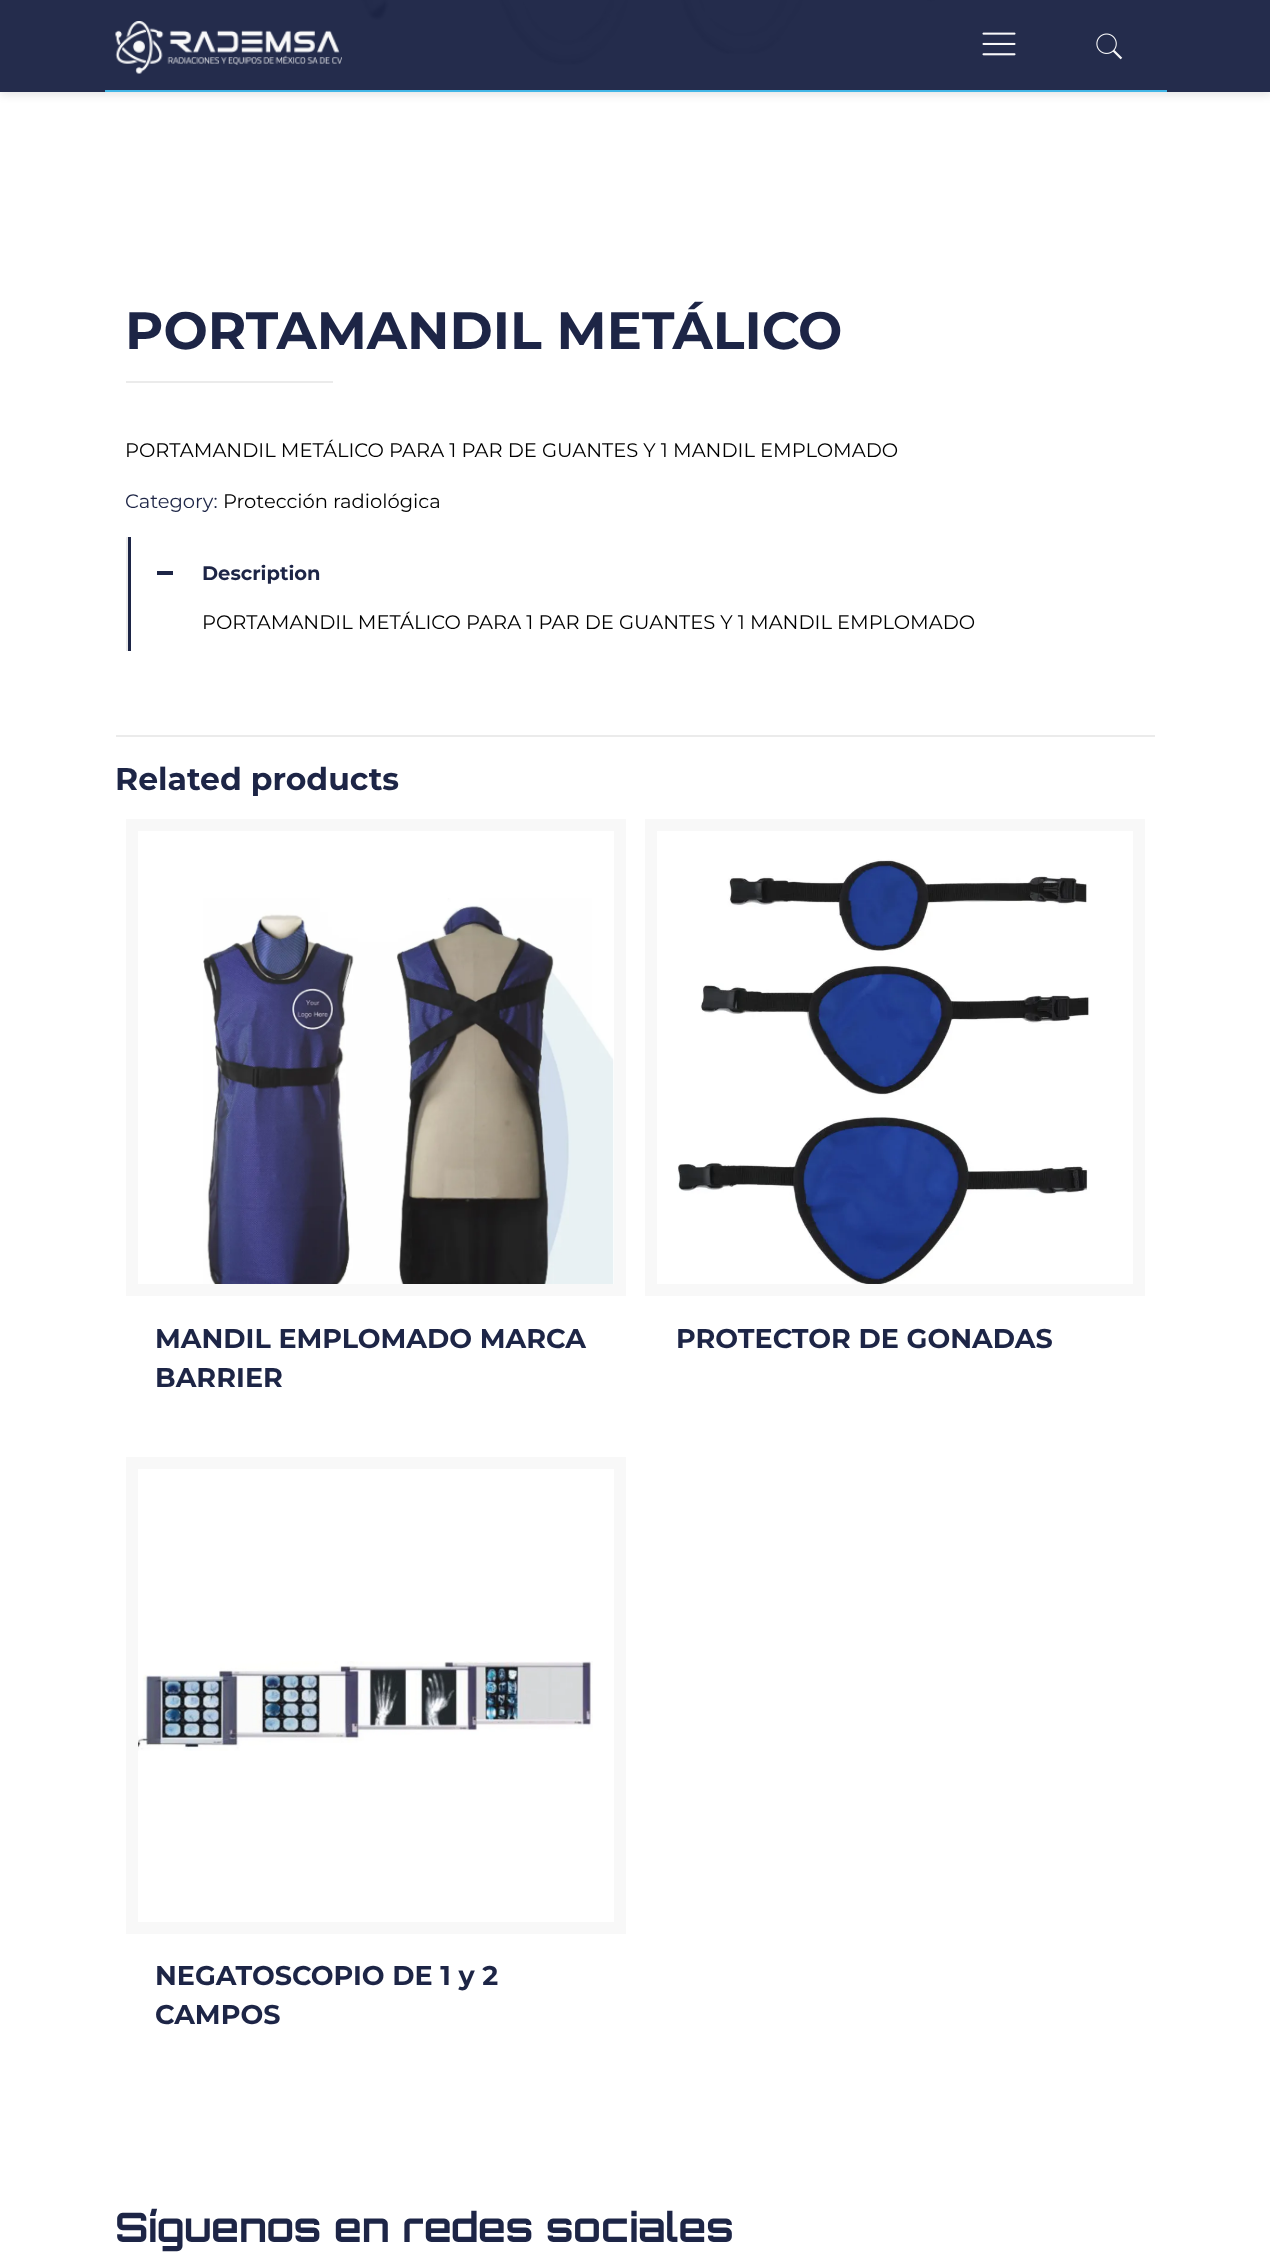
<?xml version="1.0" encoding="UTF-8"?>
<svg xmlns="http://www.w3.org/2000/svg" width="1270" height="2261">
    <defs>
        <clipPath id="clip1"><path d="M 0 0 H 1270 V 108 H 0 Z M 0 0 H 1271 V 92 H 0 Z" clip-rule="evenodd"/></clipPath>
        <filter id="blur1" x="-50%" y="-200%" width="200%" height="500%"><feGaussianBlur stdDeviation="4"/></filter>
    </defs>
    <rect width="100%" height="100%" fill="#FFFFFF"/>
    <image x="358" y="0" width="580" height="68" href="img_04.png"/>
    <g clip-path="url(#clip1)">
        <rect x="0" y="3" width="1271" height="92" fill="#080808" fill-opacity="0.1" filter="url(#blur1)"/>
    </g>
    <rect x="0" y="0" width="1270" height="92" fill="#1D2546" fill-opacity="0.97"/>
    <rect x="105" y="90" width="1062" height="2" fill="#42B6E6"/>
    <image x="115" y="21" width="227" height="53" href="img_01.png"/>
    <image x="982" y="32" width="34" height="24" href="img_02.png"/>
    <image x="1096" y="33" width="27" height="27" href="img_03.png"/>
    <text x="125" y="349" font-family="Montserrat" font-size="52.5" font-weight="700" fill="#1D2546">PORTAMANDIL METÁLICO</text>
    <rect x="126" y="381" width="207" height="2" fill="#EBEBEB"/>
    <text x="125" y="457" font-family="Montserrat" font-size="19.5" fill="#000000">PORTAMANDIL METÁLICO PARA 1 PAR DE GUANTES Y 1 MANDIL EMPLOMADO</text>
    <text x="125" y="508" font-family="Montserrat" font-size="19.5" fill="#1D2546">Category:</text>
    <text x="223" y="508" font-family="Montserrat" font-size="19.5" fill="#000000">Protección radiológica</text>
    <rect x="126" y="537" width="2" height="114" fill="#EBEBEB"/>
    <rect x="128" y="537" width="3" height="114" fill="#1D2546"/>
    <rect x="157" y="571" width="16" height="4" fill="#1D2546"/>
    <text x="202" y="580" font-family="Montserrat" font-size="19.5" font-weight="700" fill="#1D2546">Description</text>
    <text x="202" y="629" font-family="Montserrat" font-size="19.5" fill="#000000">PORTAMANDIL METÁLICO PARA 1 PAR DE GUANTES Y 1 MANDIL EMPLOMADO</text>
    <rect x="116" y="735" width="1039" height="2" fill="#EBEBEB"/>
    <text x="115" y="790" font-family="Montserrat" font-size="31.5" font-weight="700" fill="#1D2546">Related products</text>
    <rect x="132" y="825" width="488" height="465" fill="none" stroke="#F8F8F8" stroke-width="12"/>
    <image x="203" y="898" width="411" height="386" href="img_05.png"/>
    <text font-family="Montserrat" font-size="27" font-weight="700" fill="#1D2546">
        <tspan x="155" y="1348">MANDIL EMPLOMADO MARCA</tspan>
        <tspan x="155" y="1387">BARRIER</tspan>
    </text>
    <rect x="651" y="825" width="488" height="465" fill="none" stroke="#F8F8F8" stroke-width="12"/>
    <image x="677" y="859" width="413" height="425" href="img_06.png"/>
    <text x="676" y="1348" font-family="Montserrat" font-size="27" font-weight="700" fill="#1D2546">PROTECTOR DE GONADAS</text>
    <rect x="132" y="1463" width="488" height="465" fill="none" stroke="#F8F8F8" stroke-width="12"/>
    <image x="138" y="1661" width="455" height="90" href="img_07.png"/>
    <text font-family="Montserrat" font-size="27" font-weight="700" fill="#1D2546">
        <tspan x="155" y="1985">NEGATOSCOPIO DE 1 y 2</tspan>
        <tspan x="155" y="2024">CAMPOS</tspan>
    </text>
    <text x="115" y="2242" font-family="Orbitron" font-size="40.5" font-weight="700" fill="#1D2546">Síguenos en redes sociales</text>
</svg>
